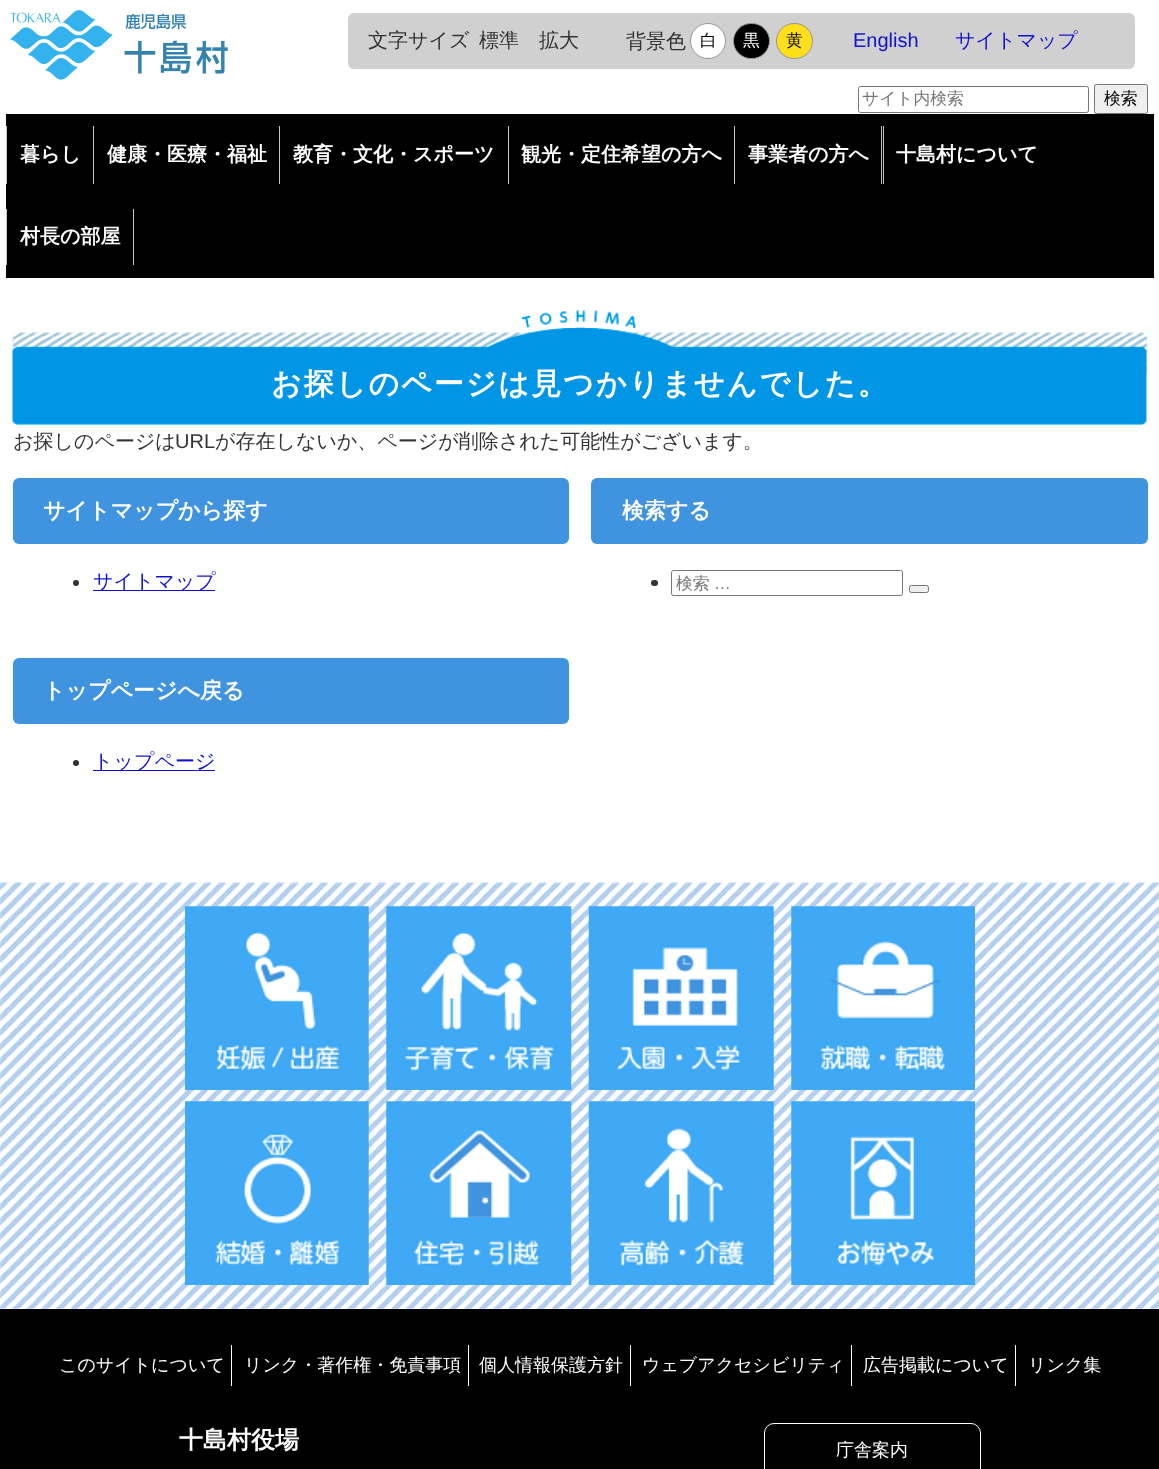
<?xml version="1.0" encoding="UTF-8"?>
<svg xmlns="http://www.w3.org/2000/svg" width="1159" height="1469">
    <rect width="100%" height="100%" fill="#FFFFFF"/>
    <image x="10" y="10" width="218" height="70" href="img_01.png"/>
    <rect x="348" y="13" width="787" height="56" rx="6" fill="#D0D0D0"/>
    <text x="368" y="47" font-family="WenQuanYi Zen Hei" font-size="20" font-weight="500" fill="#333333">文字サイズ</text>
    <text x="479" y="47" font-family="WenQuanYi Zen Hei" font-size="20" font-weight="500" fill="#333333">標準</text>
    <text x="539" y="47" font-family="WenQuanYi Zen Hei" font-size="20" font-weight="500" fill="#333333">拡大</text>
    <text x="626" y="48" font-family="WenQuanYi Zen Hei" font-size="20" font-weight="500" fill="#333333">背景色</text>
    <circle cx="708" cy="41" r="17.5" fill="#FFFFFF" stroke="#969696"/>
    <text x="700" y="46" font-family="WenQuanYi Zen Hei" font-size="16.75" font-weight="500" fill="#000000">白</text>
    <rect x="733.5" y="23.5" width="36" height="35" rx="17.5" fill="#000000" stroke="#969696"/>
    <text x="743" y="46" font-family="WenQuanYi Zen Hei" font-size="16.75" font-weight="500" fill="#FFFFFF">黒</text>
    <rect x="776.5" y="23.5" width="36" height="35" rx="17.5" fill="#FFDE1B" stroke="#969696"/>
    <text x="786" y="46" font-family="WenQuanYi Zen Hei" font-size="16.75" font-weight="500" fill="#000000">黄</text>
    <text x="853" y="47" font-family="Liberation Sans" font-size="20" fill="#1111CC">English</text>
    <text x="955" y="47" font-family="WenQuanYi Zen Hei" font-size="20" font-weight="500" fill="#1111CC">サイトマップ</text>
    <rect x="858.5" y="86.5" width="230" height="26" rx="2" fill="none" stroke="#767676"/>
    <text x="862" y="104" font-family="WenQuanYi Zen Hei" font-size="16.75" font-weight="500" fill="#757575">サイト内検索</text>
    <rect x="1094.5" y="84.5" width="53" height="29" rx="2" fill="#EFEFEF" stroke="#767676"/>
    <text x="1104" y="104" font-family="WenQuanYi Zen Hei" font-size="16.75" font-weight="500" fill="#000000">検索</text>
    <rect x="6" y="114" width="1148" height="164" fill="#000000"/>
    <rect x="6" y="126" width="1" height="58" fill="#C4C4C4"/>
    <text x="20" y="161" font-family="WenQuanYi Zen Hei" font-size="20" font-weight="700" fill="#FFFFFF">暮らし</text>
    <rect x="93" y="126" width="1" height="58" fill="#C4C4C4"/>
    <text x="107" y="161" font-family="WenQuanYi Zen Hei" font-size="20" font-weight="700" fill="#FFFFFF">健康・医療・福祉</text>
    <rect x="279" y="126" width="1" height="58" fill="#C4C4C4"/>
    <text x="293" y="161" font-family="WenQuanYi Zen Hei" font-size="20" font-weight="700" fill="#FFFFFF">教育・文化・スポーツ</text>
    <rect x="508" y="126" width="1" height="58" fill="#C4C4C4"/>
    <text x="521" y="161" font-family="WenQuanYi Zen Hei" font-size="20" font-weight="700" fill="#FFFFFF">観光・定住希望の方へ</text>
    <rect x="881" y="126" width="1" height="58" fill="#C4C4C4"/>
    <rect x="734" y="126" width="1" height="58" fill="#C4C4C4"/>
    <text x="748" y="161" font-family="WenQuanYi Zen Hei" font-size="20" font-weight="700" fill="#FFFFFF">事業者の方へ</text>
    <rect x="883" y="126" width="1" height="58" fill="#C4C4C4"/>
    <text x="896" y="161" font-family="WenQuanYi Zen Hei" font-size="20" font-weight="700" fill="#FFFFFF">十島村について</text>
    <rect x="133" y="209" width="1" height="56" fill="#C4C4C4"/>
    <rect x="6" y="209" width="1" height="56" fill="#C4C4C4"/>
    <text x="20" y="243" font-family="WenQuanYi Zen Hei" font-size="20" font-weight="700" fill="#FFFFFF">村長の部屋</text>
    <image x="12" y="310" width="1136" height="115" href="img_02.png"/>
    <text x="271" y="394" font-family="WenQuanYi Zen Hei" font-size="30" font-weight="700" letter-spacing="2" fill="#FFFFFF">お探しのページは見つかりませんでした。</text>
    <text x="13" y="448" font-family="WenQuanYi Zen Hei" font-size="20" font-weight="500" fill="#333333">お探しのページは</text>
    <text x="175" y="448" font-family="Liberation Sans" font-size="20" fill="#333333">URL</text>
    <text x="215" y="448" font-family="WenQuanYi Zen Hei" font-size="20" font-weight="500" fill="#333333">が存在しないか、ページが削除された可能性がございます。</text>
    <rect x="13" y="478" width="556" height="66" rx="6" fill="#3F93DF"/>
    <text x="43" y="518" font-family="WenQuanYi Zen Hei" font-size="22" font-weight="700" fill="#FFFFFF">サイトマップから探す</text>
    <circle cx="76" cy="583" r="3" fill="#333333"/>
    <rect x="93" y="590" width="122" height="1" fill="#1111CC"/>
    <text x="93" y="588" font-family="WenQuanYi Zen Hei" font-size="20" font-weight="500" fill="#1111CC">サイトマップ</text>
    <rect x="13" y="658" width="556" height="66" rx="6" fill="#3F93DF"/>
    <text x="43" y="698" font-family="WenQuanYi Zen Hei" font-size="22" font-weight="700" fill="#FFFFFF">トップページへ戻る</text>
    <circle cx="76" cy="763" r="3" fill="#333333"/>
    <rect x="93" y="770" width="122" height="1" fill="#1111CC"/>
    <text x="93" y="768" font-family="WenQuanYi Zen Hei" font-size="20" font-weight="500" fill="#1111CC">トップページ</text>
    <rect x="591" y="478" width="557" height="66" rx="6" fill="#3F93DF"/>
    <text x="622" y="518" font-family="WenQuanYi Zen Hei" font-size="22" font-weight="700" fill="#FFFFFF">検索する</text>
    <rect x="651" y="580" width="7" height="6" rx="3" fill="#333333"/>
    <rect x="671.5" y="570.5" width="231" height="25" rx="2" fill="none" stroke="#767676"/>
    <text x="676" y="589" font-family="WenQuanYi Zen Hei" font-size="16.75" font-weight="500" fill="#757575">検索</text>
    <text x="714" y="589" font-family="Liberation Sans" font-size="16.75" fill="#757575">…</text>
    <rect x="909.5" y="585.5" width="19" height="7" rx="2" fill="#EFEFEF" stroke="#767676"/>
    <image x="0" y="882" width="1159" height="427" href="img_03.png"/>
    <image x="185" y="906" width="184" height="184" href="img_04.png"/>
    <image x="386" y="906" width="186" height="184" href="img_05.png"/>
    <image x="588" y="906" width="186" height="184" href="img_06.png"/>
    <image x="791" y="906" width="184" height="184" href="img_07.png"/>
    <image x="185" y="1101" width="184" height="184" href="img_08.png"/>
    <image x="386" y="1101" width="186" height="184" href="img_09.png"/>
    <image x="588" y="1101" width="186" height="184" href="img_10.png"/>
    <image x="791" y="1101" width="184" height="184" href="img_11.png"/>
    <rect x="0" y="1309" width="1159" height="160" fill="#000000"/>
    <rect x="231" y="1345" width="1" height="41" fill="#FFFFFF"/>
    <text x="59" y="1371" font-family="WenQuanYi Zen Hei" font-size="18" font-weight="500" fill="#FFFFFF">このサイトについて</text>
    <rect x="468" y="1345" width="1" height="41" fill="#FFFFFF"/>
    <text x="244" y="1371" font-family="WenQuanYi Zen Hei" font-size="18" font-weight="500" fill="#FFFFFF">リンク・著作権・免責事項</text>
    <rect x="630" y="1345" width="1" height="41" fill="#FFFFFF"/>
    <text x="479" y="1371" font-family="WenQuanYi Zen Hei" font-size="18" font-weight="500" fill="#FFFFFF">個人情報保護方針</text>
    <rect x="851" y="1345" width="1" height="41" fill="#FFFFFF"/>
    <text x="642" y="1371" font-family="WenQuanYi Zen Hei" font-size="18" font-weight="500" fill="#FFFFFF">ウェブアクセシビリティ</text>
    <rect x="1015" y="1345" width="1" height="41" fill="#FFFFFF"/>
    <text x="863" y="1371" font-family="WenQuanYi Zen Hei" font-size="18" font-weight="500" fill="#FFFFFF">広告掲載について</text>
    <text x="1028" y="1371" font-family="WenQuanYi Zen Hei" font-size="18" font-weight="500" fill="#FFFFFF">リンク集</text>
    <text x="179" y="1448" font-family="WenQuanYi Zen Hei" font-size="24" font-weight="700" fill="#FFFFFF">十島村役場</text>
    <rect x="764.5" y="1423.5" width="216" height="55" rx="9.5" fill="none" stroke="#FFFFFF"/>
    <text x="836" y="1456" font-family="WenQuanYi Zen Hei" font-size="18" font-weight="500" fill="#FFFFFF">庁舎案内</text>
</svg>
